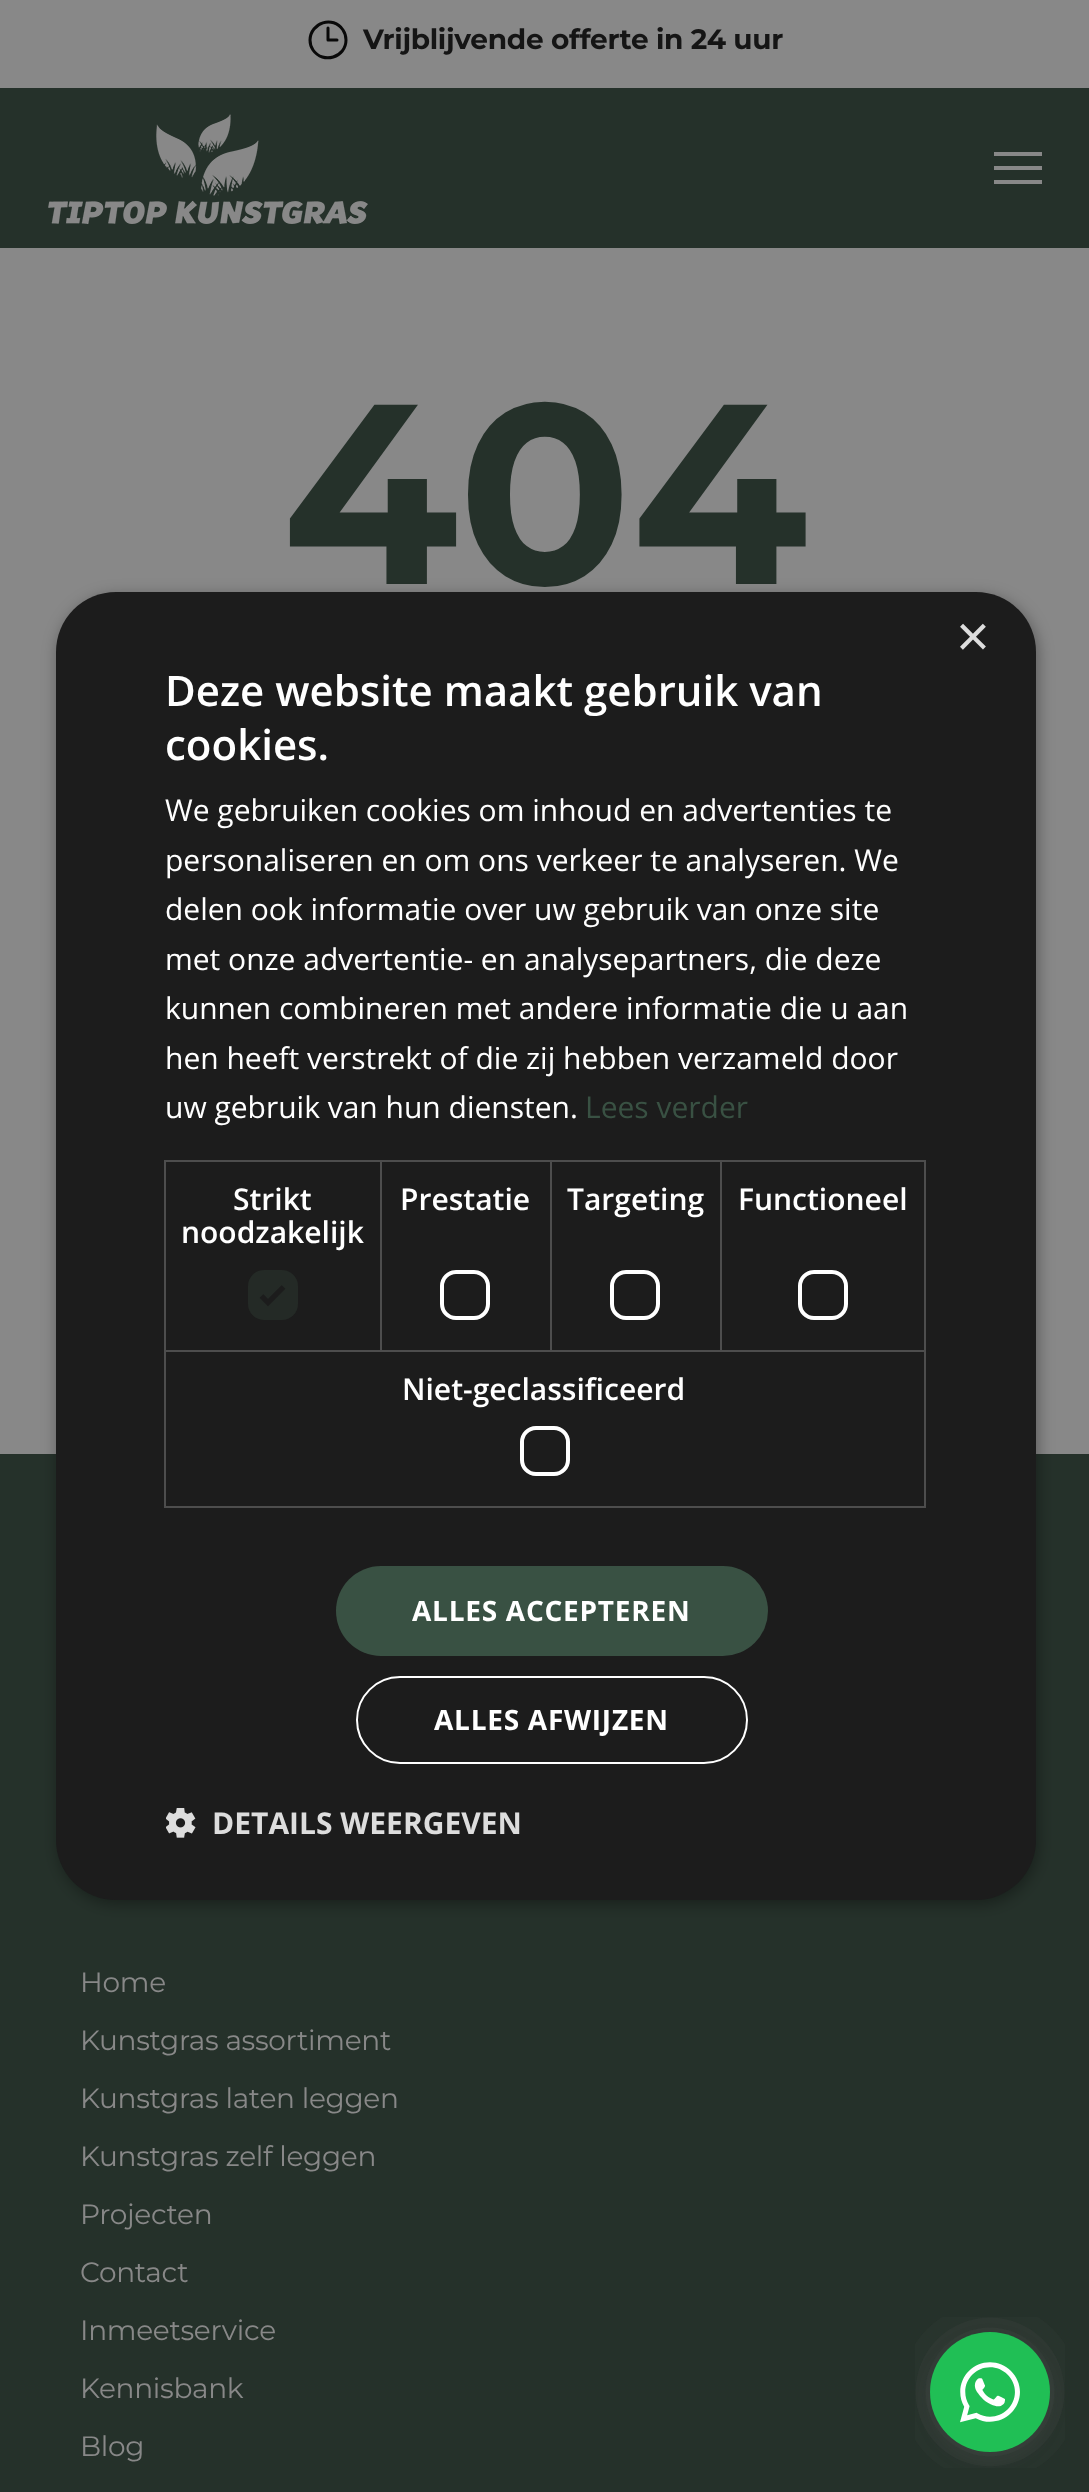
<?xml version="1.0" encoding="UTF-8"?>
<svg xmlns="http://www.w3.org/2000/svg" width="1089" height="2492">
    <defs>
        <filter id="blur1" x="-50%" y="-200%" width="200%" height="500%"><feGaussianBlur stdDeviation="8"/></filter>
    </defs>
    <rect width="100%" height="100%" fill="#888888"/>
    <path d="M 328 28 V 40 H 337 M 346 40 C 346 57.5 323 64.5 313 50 C 311 47 310 43.5 310 40 C 310.5 22.5 333 15 343 30 C 345 33 346 36.5 346 40 Z" fill="none" stroke="#090909" stroke-width="3" stroke-linecap="round" stroke-linejoin="round"/>
    <text x="363" y="49" font-family="Montserrat" font-size="28" font-weight="700" letter-spacing="-0.3" fill="#151515">Vrijblijvende offerte in 24 uur</text>
    <rect x="0" y="88" width="1089" height="160" fill="#25312A"/>
    <image x="48" y="114" width="320" height="110" href="img_01.png"/>
    <rect x="994" y="152" width="48" height="4" fill="#888888"/>
    <rect x="994" y="166" width="48" height="4" fill="#888888"/>
    <rect x="994" y="180" width="48" height="4" fill="#888888"/>
    <text x="282" y="584" font-family="Montserrat" font-size="256" font-weight="700" letter-spacing="-0.3" fill="#25312A">404</text>
    <rect x="0" y="1454" width="1089" height="1038" fill="#25312A"/>
    <text x="80" y="1992" font-family="Montserrat" font-size="28" letter-spacing="-0.3" fill="#888888">Home</text>
    <text x="80" y="2050" font-family="Montserrat" font-size="28" letter-spacing="-0.3" fill="#888888">Kunstgras assortiment</text>
    <text x="80" y="2108" font-family="Montserrat" font-size="28" letter-spacing="-0.3" fill="#888888">Kunstgras laten leggen</text>
    <text x="80" y="2166" font-family="Montserrat" font-size="28" letter-spacing="-0.3" fill="#888888">Kunstgras zelf leggen</text>
    <text x="80" y="2224" font-family="Montserrat" font-size="28" letter-spacing="-0.3" fill="#888888">Projecten</text>
    <text x="80" y="2282" font-family="Montserrat" font-size="28" letter-spacing="-0.3" fill="#888888">Contact</text>
    <text x="80" y="2340" font-family="Montserrat" font-size="28" letter-spacing="-0.3" fill="#888888">Inmeetservice</text>
    <text x="80" y="2398" font-family="Montserrat" font-size="28" letter-spacing="-0.3" fill="#888888">Kennisbank</text>
    <text x="80" y="2456" font-family="Montserrat" font-size="28" letter-spacing="-0.3" fill="#888888">Blog</text>
    <rect x="58" y="596" width="980" height="1308" rx="60" fill="#000000" fill-opacity="0.35" filter="url(#blur1)"/>
    <rect x="56" y="592" width="980" height="1308" rx="60" fill="#1C1C1C"/>
    <text x="956" y="656" font-family="Liberation Sans" font-size="58" fill="#DDDDDD">×</text>
    <text font-family="Open Sans" font-size="42" font-weight="600" fill="#FFFFFF">
        <tspan x="165" y="706">Deze website maakt gebruik van</tspan>
        <tspan x="165" y="760">cookies.</tspan>
    </text>
    <text font-family="Open Sans" font-size="30" fill="#FFFFFF">
        <tspan x="165" y="821">We gebruiken cookies om inhoud en advertenties te</tspan>
        <tspan x="165" y="871">personaliseren en om ons verkeer te analyseren. We</tspan>
        <tspan x="165" y="920">delen ook informatie over uw gebruik van onze site</tspan>
        <tspan x="165" y="970">met onze advertentie- en analysepartners, die deze</tspan>
        <tspan x="165" y="1019">kunnen combineren met andere informatie die u aan</tspan>
        <tspan x="165" y="1069">hen heeft verstrekt of die zij hebben verzameld door</tspan>
        <tspan x="165" y="1118">uw gebruik van hun diensten.</tspan>
    </text>
    <text x="585" y="1118" font-family="Open Sans" font-size="30" fill="#395143">Lees verder</text>
    <rect x="165" y="1161" width="216" height="190" fill="none" stroke="#4D4D4D" stroke-width="2"/>
    <text x="233" y="1210" font-family="Open Sans" font-size="30" font-weight="600" fill="#FFFFFF">Strikt</text>
    <text x="181" y="1243" font-family="Open Sans" font-size="30" font-weight="600" fill="#FFFFFF">noodzakelijk</text>
    <rect x="248" y="1270" width="50" height="50" rx="16" fill="#242A26"/>
    <path d="M 261.5 1296 L 268 1302.5 L 283.5 1287" fill="none" stroke="#1C1C1C" stroke-width="5.2"/>
    <rect x="381" y="1161" width="170" height="190" fill="none" stroke="#4D4D4D" stroke-width="2"/>
    <text x="400" y="1210" font-family="Open Sans" font-size="30" font-weight="600" fill="#FFFFFF">Prestatie</text>
    <rect x="442" y="1272" width="46" height="46" rx="14" fill="none" stroke="#FFFFFF" stroke-width="4"/>
    <rect x="551" y="1161" width="170" height="190" fill="none" stroke="#4D4D4D" stroke-width="2"/>
    <text x="567" y="1210" font-family="Open Sans" font-size="30" font-weight="600" fill="#FFFFFF">Targeting</text>
    <rect x="612" y="1272" width="46" height="46" rx="14" fill="none" stroke="#FFFFFF" stroke-width="4"/>
    <rect x="721" y="1161" width="204" height="190" fill="none" stroke="#4D4D4D" stroke-width="2"/>
    <text x="738" y="1210" font-family="Open Sans" font-size="30" font-weight="600" fill="#FFFFFF">Functioneel</text>
    <rect x="800" y="1272" width="46" height="46" rx="14" fill="none" stroke="#FFFFFF" stroke-width="4"/>
    <rect x="165" y="1351" width="760" height="156" fill="none" stroke="#4D4D4D" stroke-width="2"/>
    <text x="402" y="1400" font-family="Open Sans" font-size="30" font-weight="600" fill="#FFFFFF">Niet-geclassificeerd</text>
    <rect x="522" y="1428" width="46" height="46" rx="14" fill="none" stroke="#FFFFFF" stroke-width="4"/>
    <rect x="336" y="1566" width="432" height="90" rx="45" fill="#395143"/>
    <text x="412" y="1621" font-family="Open Sans" font-size="28" font-weight="700" letter-spacing="0.75" fill="#FFFFFF">ALLES ACCEPTEREN</text>
    <rect x="357" y="1677" width="390" height="86" rx="43" fill="none" stroke="#FFFFFF" stroke-width="2"/>
    <text x="434" y="1730" font-family="Open Sans" font-size="28" font-weight="700" letter-spacing="0.75" fill="#FFFFFF">ALLES AFWIJZEN</text>
    <image x="166" y="1808" width="30" height="30" href="img_02.png"/>
    <text x="212" y="1834" font-family="Open Sans" font-size="30" font-weight="700" fill="#DDDDDD">DETAILS WEERGEVEN</text>
    <image x="915" y="2317" width="150" height="151" href="img_03.png"/>
</svg>
